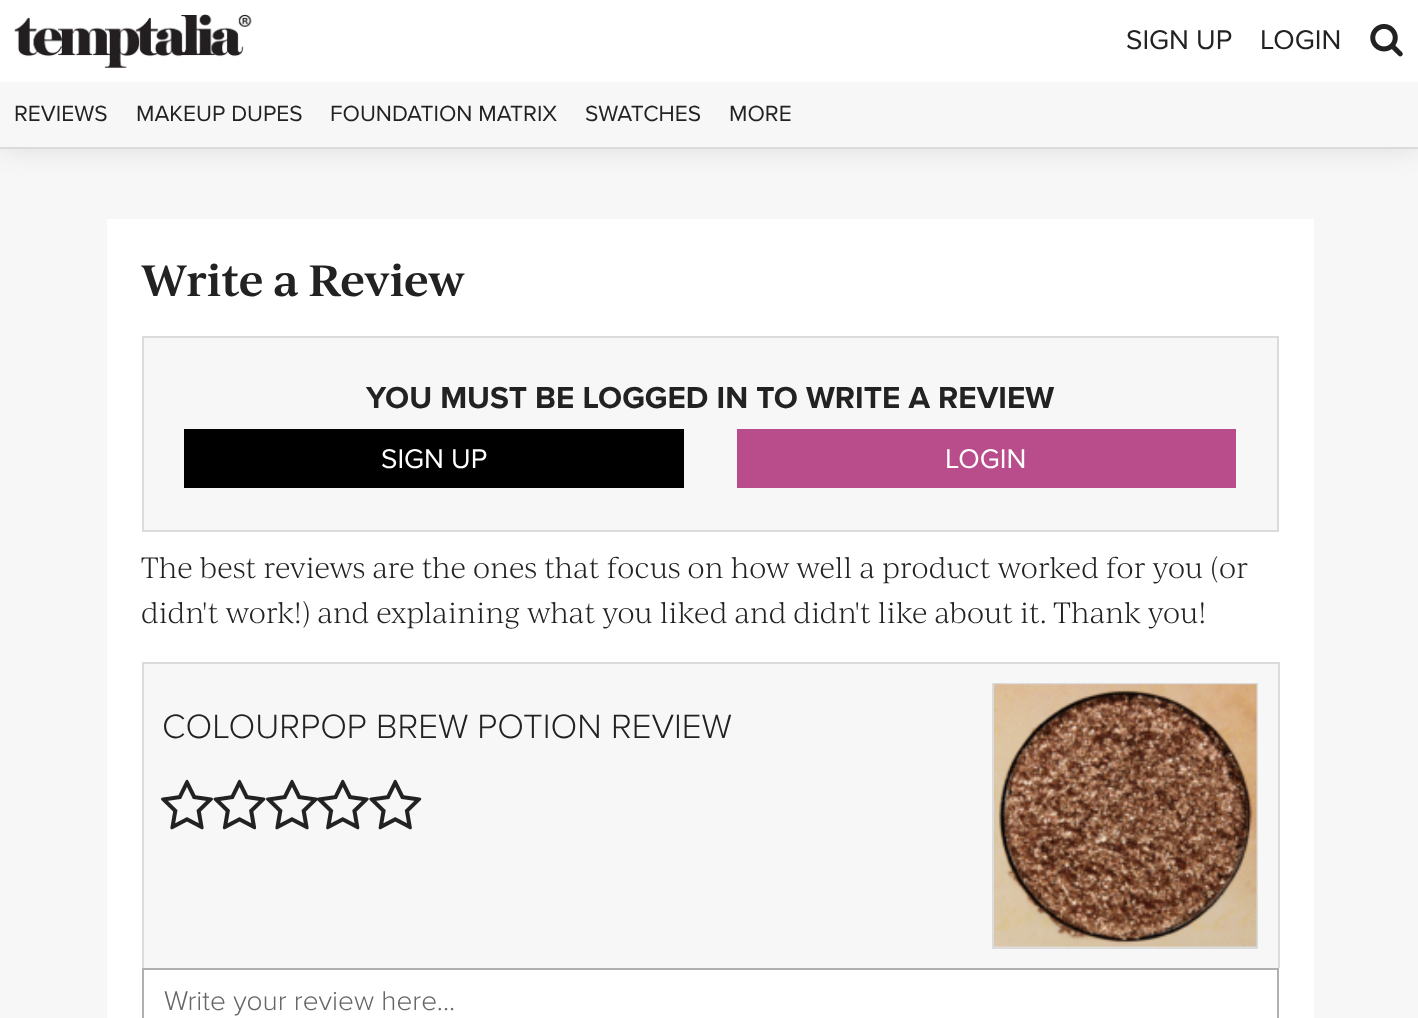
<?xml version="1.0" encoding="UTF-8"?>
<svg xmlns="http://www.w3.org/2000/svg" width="1418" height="1018">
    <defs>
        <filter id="blur1" x="-50%" y="-200%" width="200%" height="500%"><feGaussianBlur stdDeviation="14"/></filter>
    </defs>
    <rect width="100%" height="100%" fill="#F7F7F7"/>
    <rect x="0" y="0" width="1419" height="149" fill="#DDDDDD" filter="url(#blur1)"/>
    <rect x="0" y="0" width="1418" height="82" fill="#FFFFFF"/>
    <rect x="0" y="147" width="1418" height="2" fill="#DBDBDB"/>
    <image x="14" y="14" width="238" height="54" href="img_01.png"/>
    <text x="1126" y="49" font-family="Proxima Nova" font-size="28" fill="#222222">SIGN UP</text>
    <text x="1260" y="49" font-family="Proxima Nova" font-size="28" fill="#222222">LOGIN</text>
    <image x="1370" y="23" width="33" height="34" href="img_02.png"/>
    <rect x="0" y="82" width="1418" height="65" fill="#F7F7F7"/>
    <text x="14" y="121" font-family="Proxima Nova" font-size="22.75" fill="#222222">REVIEWS</text>
    <text x="136" y="121" font-family="Proxima Nova" font-size="22.75" fill="#222222">MAKEUP DUPES</text>
    <text x="330" y="121" font-family="Proxima Nova" font-size="22.75" fill="#222222">FOUNDATION MATRIX</text>
    <text x="585" y="121" font-family="Proxima Nova" font-size="22.75" fill="#222222">SWATCHES</text>
    <text x="729" y="121" font-family="Proxima Nova" font-size="22.75" fill="#222222">MORE</text>
    <rect x="107" y="219" width="1207" height="799" fill="#FFFFFF"/>
    <text x="141" y="296" font-family="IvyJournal" font-size="42" font-weight="600" fill="#222222">Write a Review</text>
    <rect x="143" y="337" width="1135" height="194" fill="#F7F7F7" stroke="#DBDBDB" stroke-width="2"/>
    <text x="366" y="408" font-family="Proxima Nova" font-size="31.5" font-weight="700" fill="#222222">YOU MUST BE LOGGED IN TO WRITE A REVIEW</text>
    <rect x="184" y="429" width="500" height="59" fill="#000000"/>
    <text x="381" y="468" font-family="Proxima Nova" font-size="28" fill="#FFFFFF">SIGN UP</text>
    <rect x="737" y="429" width="499" height="59" fill="#B94C8B"/>
    <text x="945" y="468" font-family="Proxima Nova" font-size="28" fill="#FFFFFF">LOGIN</text>
    <text font-family="IvyJournal" font-size="28" font-weight="300" fill="#222222">
        <tspan x="141" y="578">The best reviews are the ones that focus on how well a product worked for you (or</tspan>
        <tspan x="141" y="623">didn't work!) and explaining what you liked and didn't like about it. Thank you!</tspan>
    </text>
    <rect x="144" y="664" width="1134" height="304" fill="#F7F7F7"/>
    <rect x="142" y="662" width="1137" height="2" fill="#DBDBDB"/>
    <rect x="1278" y="662" width="2" height="306" fill="#DBDBDB"/>
    <rect x="142" y="662" width="2" height="306" fill="#DBDBDB"/>
    <text x="162" y="738" font-family="Proxima Nova" font-size="35" font-weight="300" fill="#222222">COLOURPOP BREW POTION REVIEW</text>
    <rect x="993" y="684" width="264" height="264" fill="none" stroke="#DBDBDB" stroke-width="2"/>
    <image x="994" y="684" width="263" height="263" href="img_03.png"/>
    <image x="161" y="779" width="52" height="51" href="img_04.png"/>
    <image x="213" y="779" width="53" height="51" href="img_05.png"/>
    <image x="266" y="779" width="52" height="51" href="img_04.png"/>
    <image x="317" y="779" width="52" height="51" href="img_06.png"/>
    <image x="369" y="779" width="53" height="51" href="img_07.png"/>
    <rect x="143" y="969" width="1135" height="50" fill="none" stroke="#B0B0B0" stroke-width="2"/>
    <text x="164" y="1010" font-family="Proxima Nova" font-size="28" font-weight="300" fill="#666666">Write your review here...</text>
</svg>
